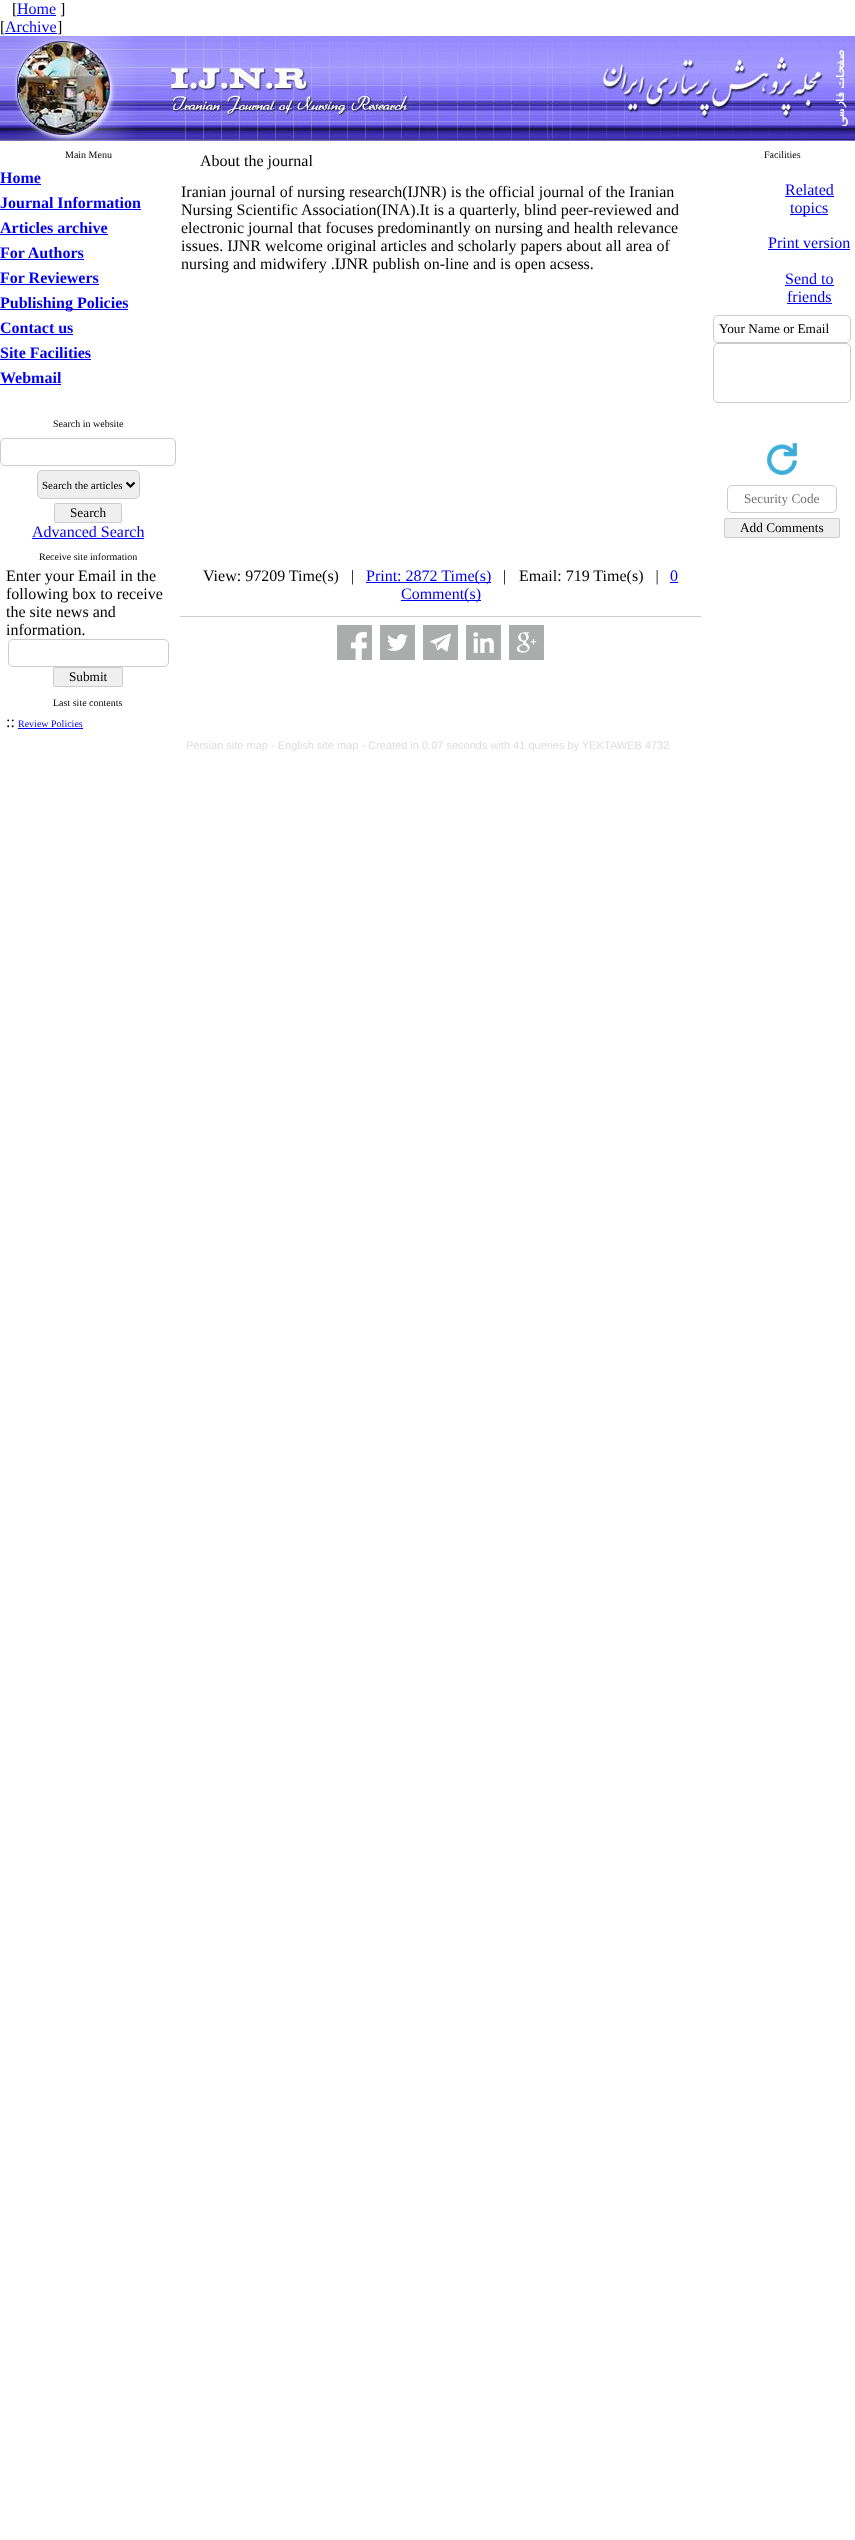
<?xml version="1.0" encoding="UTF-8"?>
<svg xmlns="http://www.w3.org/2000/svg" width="855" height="2540">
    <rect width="100%" height="100%" fill="#FFFFFF"/>
    <text x="12" y="14" font-family="Liberation Serif" font-size="16" fill="#000000">[</text>
    <text x="17" y="14" font-family="Liberation Serif" font-size="16" fill="#0000EE">Home</text>
    <rect x="17" y="15" width="39" height="1" fill="#0000EE"/>
    <text x="60" y="14" font-family="Liberation Serif" font-size="16" fill="#000000">]</text>
    <text x="0" y="32" font-family="Liberation Serif" font-size="16" fill="#000000">[</text>
    <text x="5" y="32" font-family="Liberation Serif" font-size="16" fill="#0000EE">Archive</text>
    <rect x="5" y="33" width="52" height="1" fill="#0000EE"/>
    <text x="57" y="32" font-family="Liberation Serif" font-size="16" fill="#000000">]</text>
    <image x="0" y="36" width="151" height="105" href="img_01.png"/>
    <image x="447" y="36" width="105" height="105" href="img_02.png"/>
    <image x="151" y="36" width="296" height="105" href="img_03.png"/>
    <image x="552" y="36" width="303" height="8" href="img_04.png"/>
    <image x="552" y="44" width="303" height="97" href="img_05.png"/>
    <text x="65" y="158" font-family="Liberation Serif" font-size="10" fill="#000000">Main Menu</text>
    <text x="0" y="183" font-family="Liberation Serif" font-size="16" font-weight="700" fill="#0000EE">Home</text>
    <rect x="0" y="184" width="41" height="1" fill="#0000EE"/>
    <text x="0" y="208" font-family="Liberation Serif" font-size="16" font-weight="700" fill="#0000EE">Journal Information</text>
    <rect x="0" y="209" width="141" height="1" fill="#0000EE"/>
    <text x="0" y="233" font-family="Liberation Serif" font-size="16" font-weight="700" fill="#0000EE">Articles archive</text>
    <rect x="0" y="234" width="108" height="1" fill="#0000EE"/>
    <text x="0" y="258" font-family="Liberation Serif" font-size="16" font-weight="700" fill="#0000EE">For Authors</text>
    <rect x="0" y="259" width="84" height="1" fill="#0000EE"/>
    <text x="0" y="283" font-family="Liberation Serif" font-size="16" font-weight="700" fill="#0000EE">For Reviewers</text>
    <rect x="0" y="284" width="99" height="1" fill="#0000EE"/>
    <rect x="0" y="309" width="128" height="1" fill="#0000EE"/>
    <text font-family="Liberation Serif" font-size="16" font-weight="700" fill="#0000EE">
        <tspan x="0" y="308">Publishing Policies</tspan>
        <tspan x="0" y="333">Contact us</tspan>
    </text>
    <rect x="0" y="334" width="73" height="1" fill="#0000EE"/>
    <text x="0" y="358" font-family="Liberation Serif" font-size="16" font-weight="700" fill="#0000EE">Site Facilities</text>
    <rect x="0" y="359" width="91" height="1" fill="#0000EE"/>
    <text x="0" y="383" font-family="Liberation Serif" font-size="16" font-weight="700" fill="#0000EE">Webmail</text>
    <rect x="0" y="384" width="61" height="1" fill="#0000EE"/>
    <text x="53" y="427" font-family="Liberation Serif" font-size="10" fill="#000000">Search in website</text>
    <rect x="0.5" y="438.5" width="175" height="27" rx="4.5" fill="none" stroke="#CCCCCC"/>
    <rect x="37.5" y="470.5" width="102" height="28" rx="4.5" fill="#EFEFEF" stroke="#CCCCCC"/>
    <path d="M 126.5 482.5 L 130.5 486.5 L 134.5 482.5" fill="none" stroke="#000000" stroke-width="2"/>
    <text x="42" y="489" font-family="Liberation Serif" font-size="11" fill="#000000">Search the articles</text>
    <rect x="54.5" y="503.5" width="67" height="19" rx="1.5" fill="#EFEFEF" stroke="#CCCCCC"/>
    <text x="70" y="517" font-family="Liberation Serif" font-size="13.25" fill="#000000">Search</text>
    <text x="32" y="537" font-family="Liberation Serif" font-size="16" fill="#0000EE">Advanced Search</text>
    <rect x="32" y="538" width="112" height="1" fill="#0000EE"/>
    <text x="39" y="560" font-family="Liberation Serif" font-size="10" fill="#000000">Receive site information</text>
    <text font-family="Liberation Serif" font-size="16" fill="#000000">
        <tspan x="6" y="581">Enter your Email in the</tspan>
        <tspan x="6" y="599">following box to receive</tspan>
        <tspan x="6" y="617">the site news and</tspan>
        <tspan x="6" y="635">information.</tspan>
    </text>
    <rect x="8.5" y="639.5" width="160" height="27" rx="4.5" fill="none" stroke="#CCCCCC"/>
    <rect x="53.5" y="667.5" width="69" height="19" rx="1.5" fill="#EFEFEF" stroke="#CCCCCC"/>
    <text x="69" y="681" font-family="Liberation Serif" font-size="13.25" fill="#000000">Submit</text>
    <text x="53" y="706" font-family="Liberation Serif" font-size="10" fill="#000000">Last site contents</text>
    <text x="6" y="727" font-family="Liberation Serif" font-size="16" fill="#000000">::</text>
    <text x="18" y="727" font-family="Liberation Serif" font-size="10" fill="#0000EE">Review Policies</text>
    <rect x="18" y="728" width="65" height="1" fill="#0000EE"/>
    <text x="200" y="166" font-family="Liberation Serif" font-size="16" fill="#000000">About the journal</text>
    <text font-family="Liberation Serif" font-size="16" fill="#000000">
        <tspan x="181" y="197">Iranian journal of nursing research(IJNR) is the official journal of the Iranian</tspan>
        <tspan x="181" y="215">Nursing Scientific Association(INA).It is a quarterly, blind peer-reviewed and</tspan>
        <tspan x="181" y="233">electronic journal that focuses predominantly on nursing and health relevance</tspan>
        <tspan x="181" y="251">issues. IJNR welcome original articles and scholarly papers about all area of</tspan>
        <tspan x="181" y="269">nursing and midwifery .IJNR publish on-line and is open acsess.</tspan>
    </text>
    <text x="764" y="158" font-family="Liberation Serif" font-size="10" fill="#000000">Facilities</text>
    <text x="785" y="195" font-family="Liberation Serif" font-size="16" fill="#0000EE">Related</text>
    <rect x="785" y="196" width="49" height="1" fill="#0000EE"/>
    <rect x="790" y="214" width="38" height="1" fill="#0000EE"/>
    <text x="790" y="213" font-family="Liberation Serif" font-size="16" fill="#0000EE">topics</text>
    <text x="768" y="248" font-family="Liberation Serif" font-size="16" fill="#0000EE">Print version</text>
    <rect x="768" y="249" width="82" height="1" fill="#0000EE"/>
    <text x="785" y="284" font-family="Liberation Serif" font-size="16" fill="#0000EE">Send to</text>
    <rect x="785" y="285" width="49" height="1" fill="#0000EE"/>
    <text x="787" y="302" font-family="Liberation Serif" font-size="16" fill="#0000EE">friends</text>
    <rect x="787" y="303" width="45" height="1" fill="#0000EE"/>
    <rect x="713.5" y="315.5" width="137" height="27" rx="4.5" fill="none" stroke="#CCCCCC"/>
    <text x="719" y="333" font-family="Liberation Serif" font-size="13.25" fill="#000000">Your Name or Email</text>
    <rect x="713.5" y="343.5" width="137" height="59" rx="4.5" fill="none" stroke="#CCCCCC"/>
    <image x="767" y="443" width="30" height="32" href="img_06.png"/>
    <rect x="727.5" y="485.5" width="109" height="27" rx="4.5" fill="none" stroke="#CCCCCC"/>
    <text x="744" y="503" font-family="Liberation Serif" font-size="13.25" fill="#757575">Security Code</text>
    <rect x="724.5" y="518.5" width="115" height="19" rx="1.5" fill="#EFEFEF" stroke="#CCCCCC"/>
    <text x="740" y="532" font-family="Liberation Serif" font-size="13.25" fill="#000000">Add Comments</text>
    <text x="203" y="581" font-family="Liberation Serif" font-size="16" fill="#000000" xml:space="preserve">View: 97209 Time(s)   |</text>
    <rect x="366" y="582" width="125" height="1" fill="#0000EE"/>
    <text x="366" y="581" font-family="Liberation Serif" font-size="16" fill="#0000EE">Print: 2872 Time(s)</text>
    <text x="503" y="581" font-family="Liberation Serif" font-size="16" fill="#000000">|</text>
    <text x="519" y="581" font-family="Liberation Serif" font-size="16" fill="#000000" xml:space="preserve">Email: 719 Time(s)   |</text>
    <text x="670" y="581" font-family="Liberation Serif" font-size="16" fill="#0000EE">0</text>
    <rect x="670" y="582" width="8" height="1" fill="#0000EE"/>
    <rect x="401" y="600" width="80" height="1" fill="#0000EE"/>
    <text x="401" y="599" font-family="Liberation Serif" font-size="16" fill="#0000EE">Comment(s)</text>
    <rect x="180" y="616" width="521" height="1" fill="#CCCCCC"/>
    <image x="337" y="625" width="35" height="35" href="img_07.png"/>
    <image x="380" y="625" width="35" height="35" href="img_08.png"/>
    <image x="423" y="625" width="35" height="35" href="img_09.png"/>
    <image x="466" y="625" width="35" height="35" href="img_10.png"/>
    <image x="509" y="625" width="35" height="35" href="img_11.png"/>
    <text x="186" y="749" font-family="Liberation Sans" font-size="11" fill="#DDDDDD">Persian site map - English site map - Created in 0.07 seconds with 41 queries by YEKTAWEB 4732</text>
</svg>
